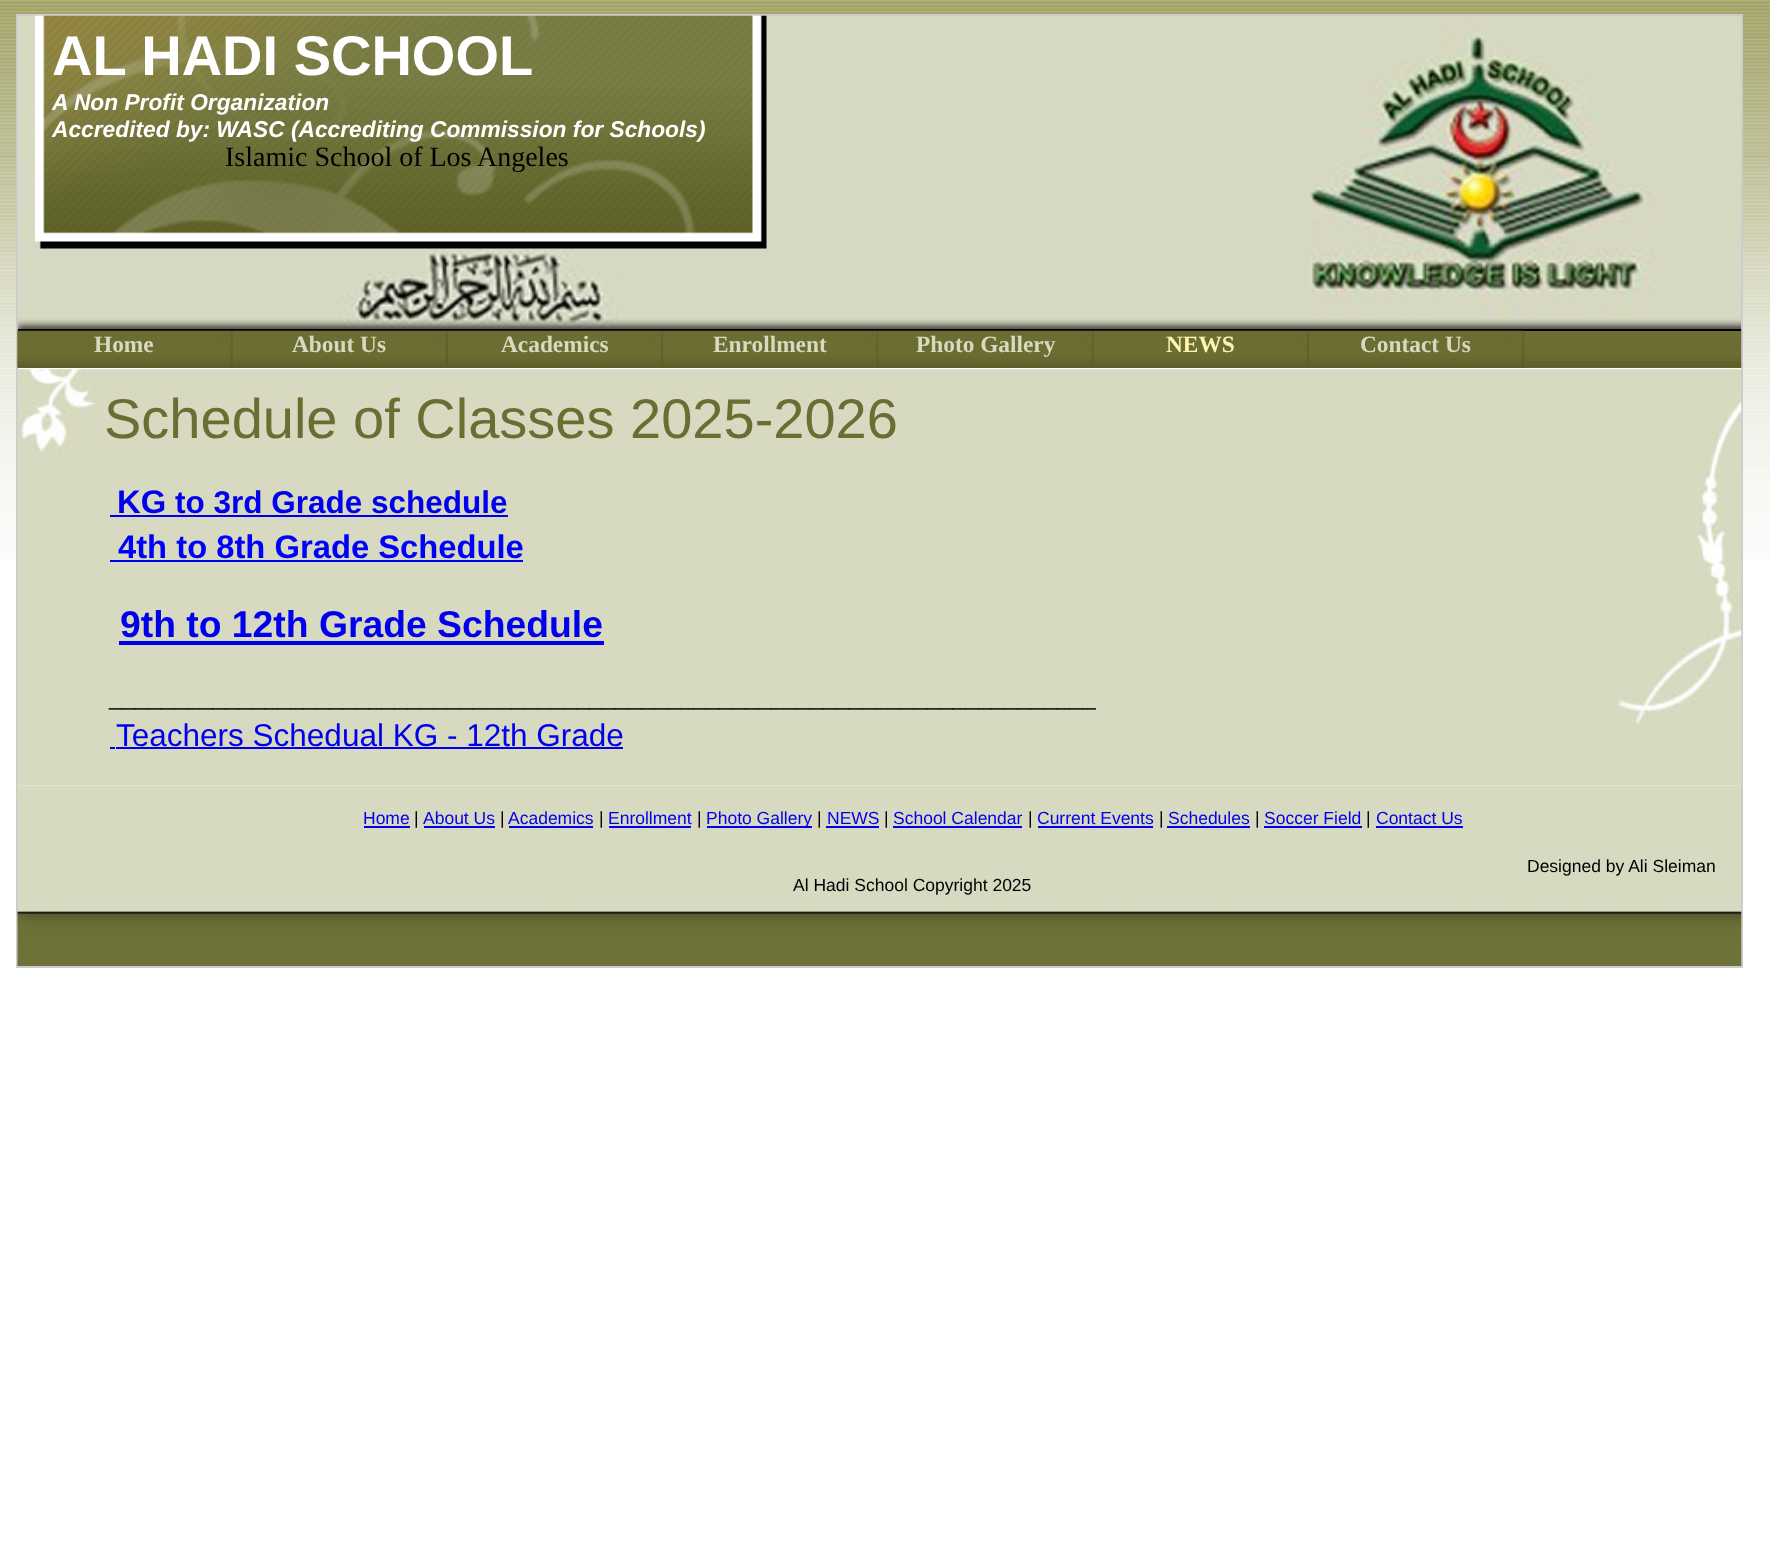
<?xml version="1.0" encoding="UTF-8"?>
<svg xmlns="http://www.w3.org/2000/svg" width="1770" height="1545">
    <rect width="100%" height="100%" fill="#FFFFFF"/>
    <image x="0" y="0" width="1770" height="560" href="img_01.png"/>
    <rect x="17" y="15" width="1725" height="952" fill="none" stroke="#CCCCCC" stroke-width="2"/>
    <image x="17" y="16" width="1725" height="313" href="img_02.png"/>
    <image x="35" y="15" width="732" height="234" href="img_03.png"/>
    <text x="52" y="75" font-family="Liberation Sans" font-size="56" font-weight="700" fill="#FFFFFF">AL HADI SCHOOL</text>
    <text font-family="Liberation Sans" font-size="22.75" font-weight="700" font-style="italic" fill="#FFFFFF">
        <tspan x="52" y="110">A Non Profit Organization</tspan>
        <tspan x="52" y="137">Accredited by: WASC (Accrediting Commission for Schools)</tspan>
    </text>
    <text x="225" y="166" font-family="Liberation Serif" font-size="28" fill="#000000">Islamic School of Los Angeles</text>
    <rect x="18" y="367" width="1723" height="1" fill="#6C6D33"/>
    <image x="17" y="329" width="1725" height="39" href="img_04.png"/>
    <rect x="18" y="329" width="1723" height="2" fill="#000000"/>
    <rect x="18" y="368" width="1723" height="2" fill="#FFFFFF"/>
    <image x="17" y="330" width="216" height="38" href="img_05.png"/>
    <text x="94" y="352" font-family="Liberation Serif" font-size="23.35" font-weight="700" fill="#D8DAC0">Home</text>
    <image x="232" y="330" width="216" height="38" href="img_06.png"/>
    <text x="292" y="352" font-family="Liberation Serif" font-size="23.35" font-weight="700" fill="#D8DAC0">About Us</text>
    <image x="448" y="330" width="216" height="38" href="img_07.png"/>
    <text x="501" y="352" font-family="Liberation Serif" font-size="23.35" font-weight="700" fill="#D8DAC0">Academics</text>
    <image x="663" y="330" width="216" height="38" href="img_08.png"/>
    <text x="713" y="352" font-family="Liberation Serif" font-size="23.35" font-weight="700" fill="#D8DAC0">Enrollment</text>
    <image x="878" y="330" width="216" height="38" href="img_09.png"/>
    <text x="916" y="352" font-family="Liberation Serif" font-size="23.35" font-weight="700" fill="#D8DAC0">Photo Gallery</text>
    <image x="1093" y="330" width="216" height="38" href="img_06.png"/>
    <text x="1166" y="352" font-family="Liberation Serif" font-size="23.35" font-weight="700" fill="#FFF3B4">NEWS</text>
    <image x="1309" y="330" width="216" height="38" href="img_07.png"/>
    <text x="1360" y="352" font-family="Liberation Serif" font-size="23.35" font-weight="700" fill="#D8DAC0">Contact Us</text>
    <image x="17" y="369" width="1725" height="417" href="img_10.png"/>
    <text x="104" y="438" font-family="Liberation Sans" font-size="56" fill="#6C6D33">Schedule of Classes 2025-2026</text>
    <text x="117" y="513" font-family="Liberation Sans" font-size="32.75" font-weight="700" fill="#0000EE">KG</text>
    <rect x="110" y="515" width="398" height="2" fill="#0000EE"/>
    <text x="175" y="513" font-family="Liberation Sans" font-size="31.5" font-weight="700" fill="#0000EE">to 3rd Grade schedule</text>
    <text x="118" y="558" font-family="Liberation Sans" font-size="32.75" font-weight="700" fill="#0000FF">4th to 8th Grade Schedule</text>
    <rect x="110" y="560" width="413" height="2" fill="#0000EE"/>
    <text x="120" y="637" font-family="Liberation Sans" font-size="37.3" font-weight="700" fill="#0000EE">9th to 12th Grade Schedule</text>
    <rect x="119" y="641" width="485" height="4" fill="#0000EE"/>
    <text x="109" y="705" font-family="Liberation Sans" font-size="23.35" fill="#000000">____________________________________________________________________________</text>
    <text x="116" y="746" font-family="Liberation Sans" font-size="31.5" fill="#0000EE">Teachers Schedual KG - 12th Grade</text>
    <rect x="110" y="747" width="5" height="2" fill="#0000EE"/>
    <rect x="116" y="747" width="507" height="2" fill="#0000EE"/>
    <rect x="17" y="786" width="1724" height="18" fill="#D7D9C1"/>
    <rect x="18" y="804" width="1723" height="106" fill="#D7D9C1"/>
    <text x="363" y="824" font-family="Liberation Sans" font-size="17.5" fill="#0000EE">Home</text>
    <rect x="364" y="826" width="46" height="2" fill="#0000EE"/>
    <text x="414" y="824" font-family="Liberation Sans" font-size="17.5" fill="#000000">|</text>
    <text x="423" y="824" font-family="Liberation Sans" font-size="17.5" fill="#0000EE">About Us</text>
    <rect x="424" y="826" width="71" height="2" fill="#0000EE"/>
    <text x="500" y="824" font-family="Liberation Sans" font-size="17.5" fill="#000000">|</text>
    <text x="508" y="824" font-family="Liberation Sans" font-size="17.5" fill="#0000EE">Academics</text>
    <rect x="509" y="826" width="84" height="2" fill="#0000EE"/>
    <text x="599" y="824" font-family="Liberation Sans" font-size="17.5" fill="#000000">|</text>
    <text x="608" y="824" font-family="Liberation Sans" font-size="17.5" fill="#0000EE">Enrollment</text>
    <rect x="609" y="826" width="82" height="2" fill="#0000EE"/>
    <text x="697" y="824" font-family="Liberation Sans" font-size="17.5" fill="#000000">|</text>
    <rect x="707" y="826" width="105" height="2" fill="#0000EE"/>
    <text x="706" y="824" font-family="Liberation Sans" font-size="17.5" fill="#0000EE">Photo Gallery</text>
    <text x="817" y="824" font-family="Liberation Sans" font-size="17.5" fill="#000000">|</text>
    <text x="827" y="824" font-family="Liberation Sans" font-size="17.5" fill="#0000EE">NEWS</text>
    <rect x="826" y="826" width="53" height="2" fill="#0000EE"/>
    <text x="884" y="824" font-family="Liberation Sans" font-size="17.5" fill="#000000">|</text>
    <text x="893" y="824" font-family="Liberation Sans" font-size="17.5" fill="#0000EE">School Calendar</text>
    <rect x="893" y="826" width="129" height="2" fill="#0000EE"/>
    <text x="1028" y="824" font-family="Liberation Sans" font-size="17.5" fill="#000000">|</text>
    <text x="1037" y="824" font-family="Liberation Sans" font-size="17.5" fill="#0000EE">Current Events</text>
    <rect x="1038" y="826" width="115" height="2" fill="#0000EE"/>
    <text x="1159" y="824" font-family="Liberation Sans" font-size="17.5" fill="#000000">|</text>
    <text x="1168" y="824" font-family="Liberation Sans" font-size="17.5" fill="#0000EE">Schedules</text>
    <rect x="1167" y="826" width="83" height="2" fill="#0000EE"/>
    <text x="1255" y="824" font-family="Liberation Sans" font-size="17.5" fill="#000000">|</text>
    <text x="1264" y="824" font-family="Liberation Sans" font-size="17.5" fill="#0000EE">Soccer Field</text>
    <rect x="1264" y="826" width="98" height="2" fill="#0000EE"/>
    <text x="1366" y="824" font-family="Liberation Sans" font-size="17.5" fill="#000000">|</text>
    <text x="1376" y="824" font-family="Liberation Sans" font-size="17.5" fill="#0000EE">Contact Us</text>
    <rect x="1376" y="826" width="87" height="2" fill="#0000EE"/>
    <text x="1527" y="872" font-family="Liberation Sans" font-size="17.5" fill="#000000">Designed by Ali Sleiman</text>
    <text x="793" y="891" font-family="Liberation Sans" font-size="17.5" fill="#000000">Al Hadi School Copyright 2025</text>
    <image x="17" y="910" width="1725" height="56" href="img_11.png"/>
</svg>
